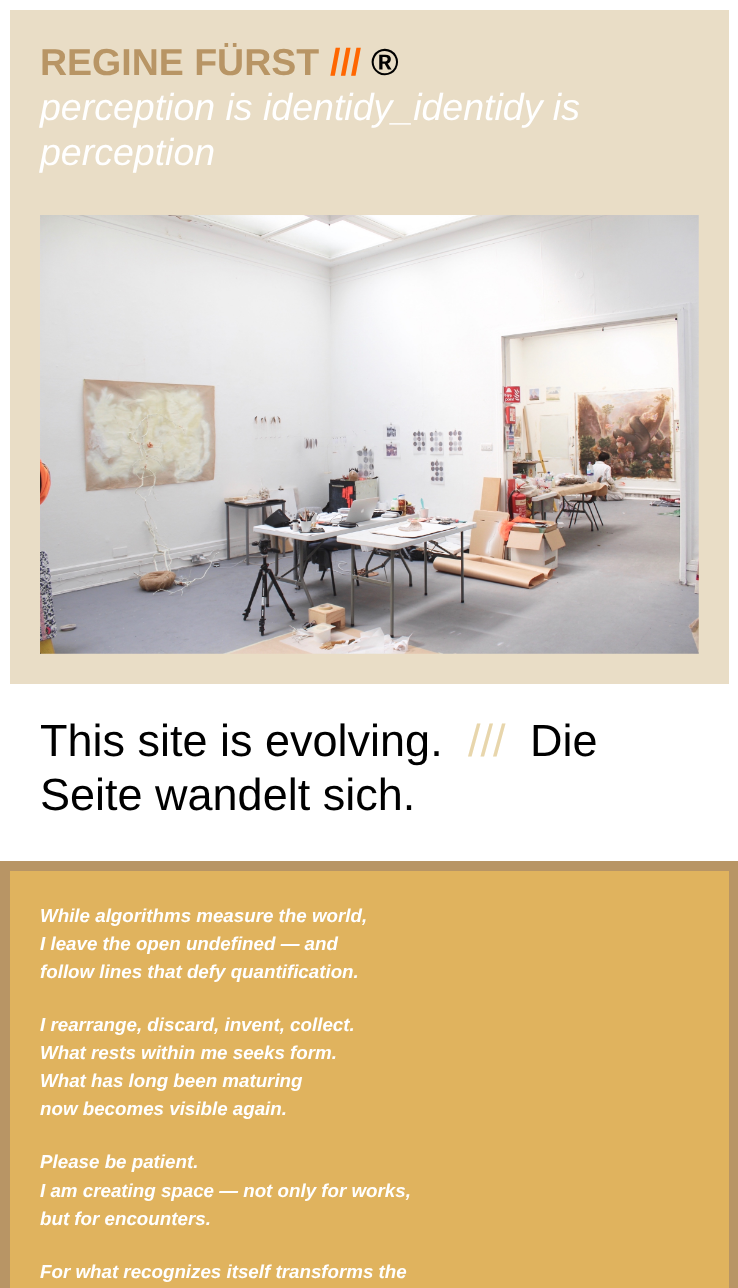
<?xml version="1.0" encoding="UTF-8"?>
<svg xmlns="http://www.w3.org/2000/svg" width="738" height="1288">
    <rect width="100%" height="100%" fill="#FFFFFF"/>
    <rect x="10" y="10" width="719" height="674" fill="#E9DDC6"/>
    <text x="40" y="75" font-family="Liberation Sans" font-size="37.5" font-weight="700" fill="#B89565">REGINE FÜRST</text>
    <text x="330" y="75" font-family="Liberation Sans" font-size="37.5" font-weight="700" fill="#FF6600">///</text>
    <text x="371" y="75" font-family="Liberation Sans" font-size="37.5" font-weight="700" fill="#000000">®</text>
    <text font-family="Liberation Sans" font-size="37.5" font-style="italic" fill="#FFFFFF">
        <tspan x="40" y="120">perception is identidy_identidy is</tspan>
        <tspan x="40" y="165">perception</tspan>
    </text>
    <image x="40" y="215" width="659" height="439" href="img_01.png"/>
    <text x="40" y="756" font-family="Liberation Sans" font-size="45" fill="#000000">This site is evolving.</text>
    <text x="468" y="756" font-family="Liberation Sans" font-size="45" fill="#E8D6AC">///</text>
    <text x="530" y="756" font-family="Liberation Sans" font-size="45" fill="#000000">Die</text>
    <text x="40" y="810" font-family="Liberation Sans" font-size="45" fill="#000000">Seite wandelt sich.</text>
    <rect x="0" y="861" width="738" height="427" fill="#B89565"/>
    <rect x="10" y="871" width="719" height="417" fill="#E0B35E"/>
    <text font-family="Liberation Sans" font-size="18.75" font-weight="700" font-style="italic" fill="#FFFFFF">
        <tspan x="40" y="922">While algorithms measure the world,</tspan>
        <tspan x="40" y="950">I leave the open undefined — and</tspan>
        <tspan x="40" y="978">follow lines that defy quantification.</tspan>
    </text>
    <text font-family="Liberation Sans" font-size="18.75" font-weight="700" font-style="italic" fill="#FFFFFF">
        <tspan x="40" y="1031">I rearrange, discard, invent, collect.</tspan>
        <tspan x="40" y="1059">What rests within me seeks form.</tspan>
        <tspan x="40" y="1087">What has long been maturing</tspan>
        <tspan x="40" y="1115">now becomes visible again.</tspan>
    </text>
    <text font-family="Liberation Sans" font-size="18.75" font-weight="700" font-style="italic" fill="#FFFFFF">
        <tspan x="40" y="1168">Please be patient.</tspan>
        <tspan x="40" y="1197">I am creating space — not only for works,</tspan>
        <tspan x="40" y="1225">but for encounters.</tspan>
    </text>
    <text x="40" y="1278" font-family="Liberation Sans" font-size="18.75" font-weight="700" font-style="italic" fill="#FFFFFF">For what recognizes itself transforms the</text>
</svg>
